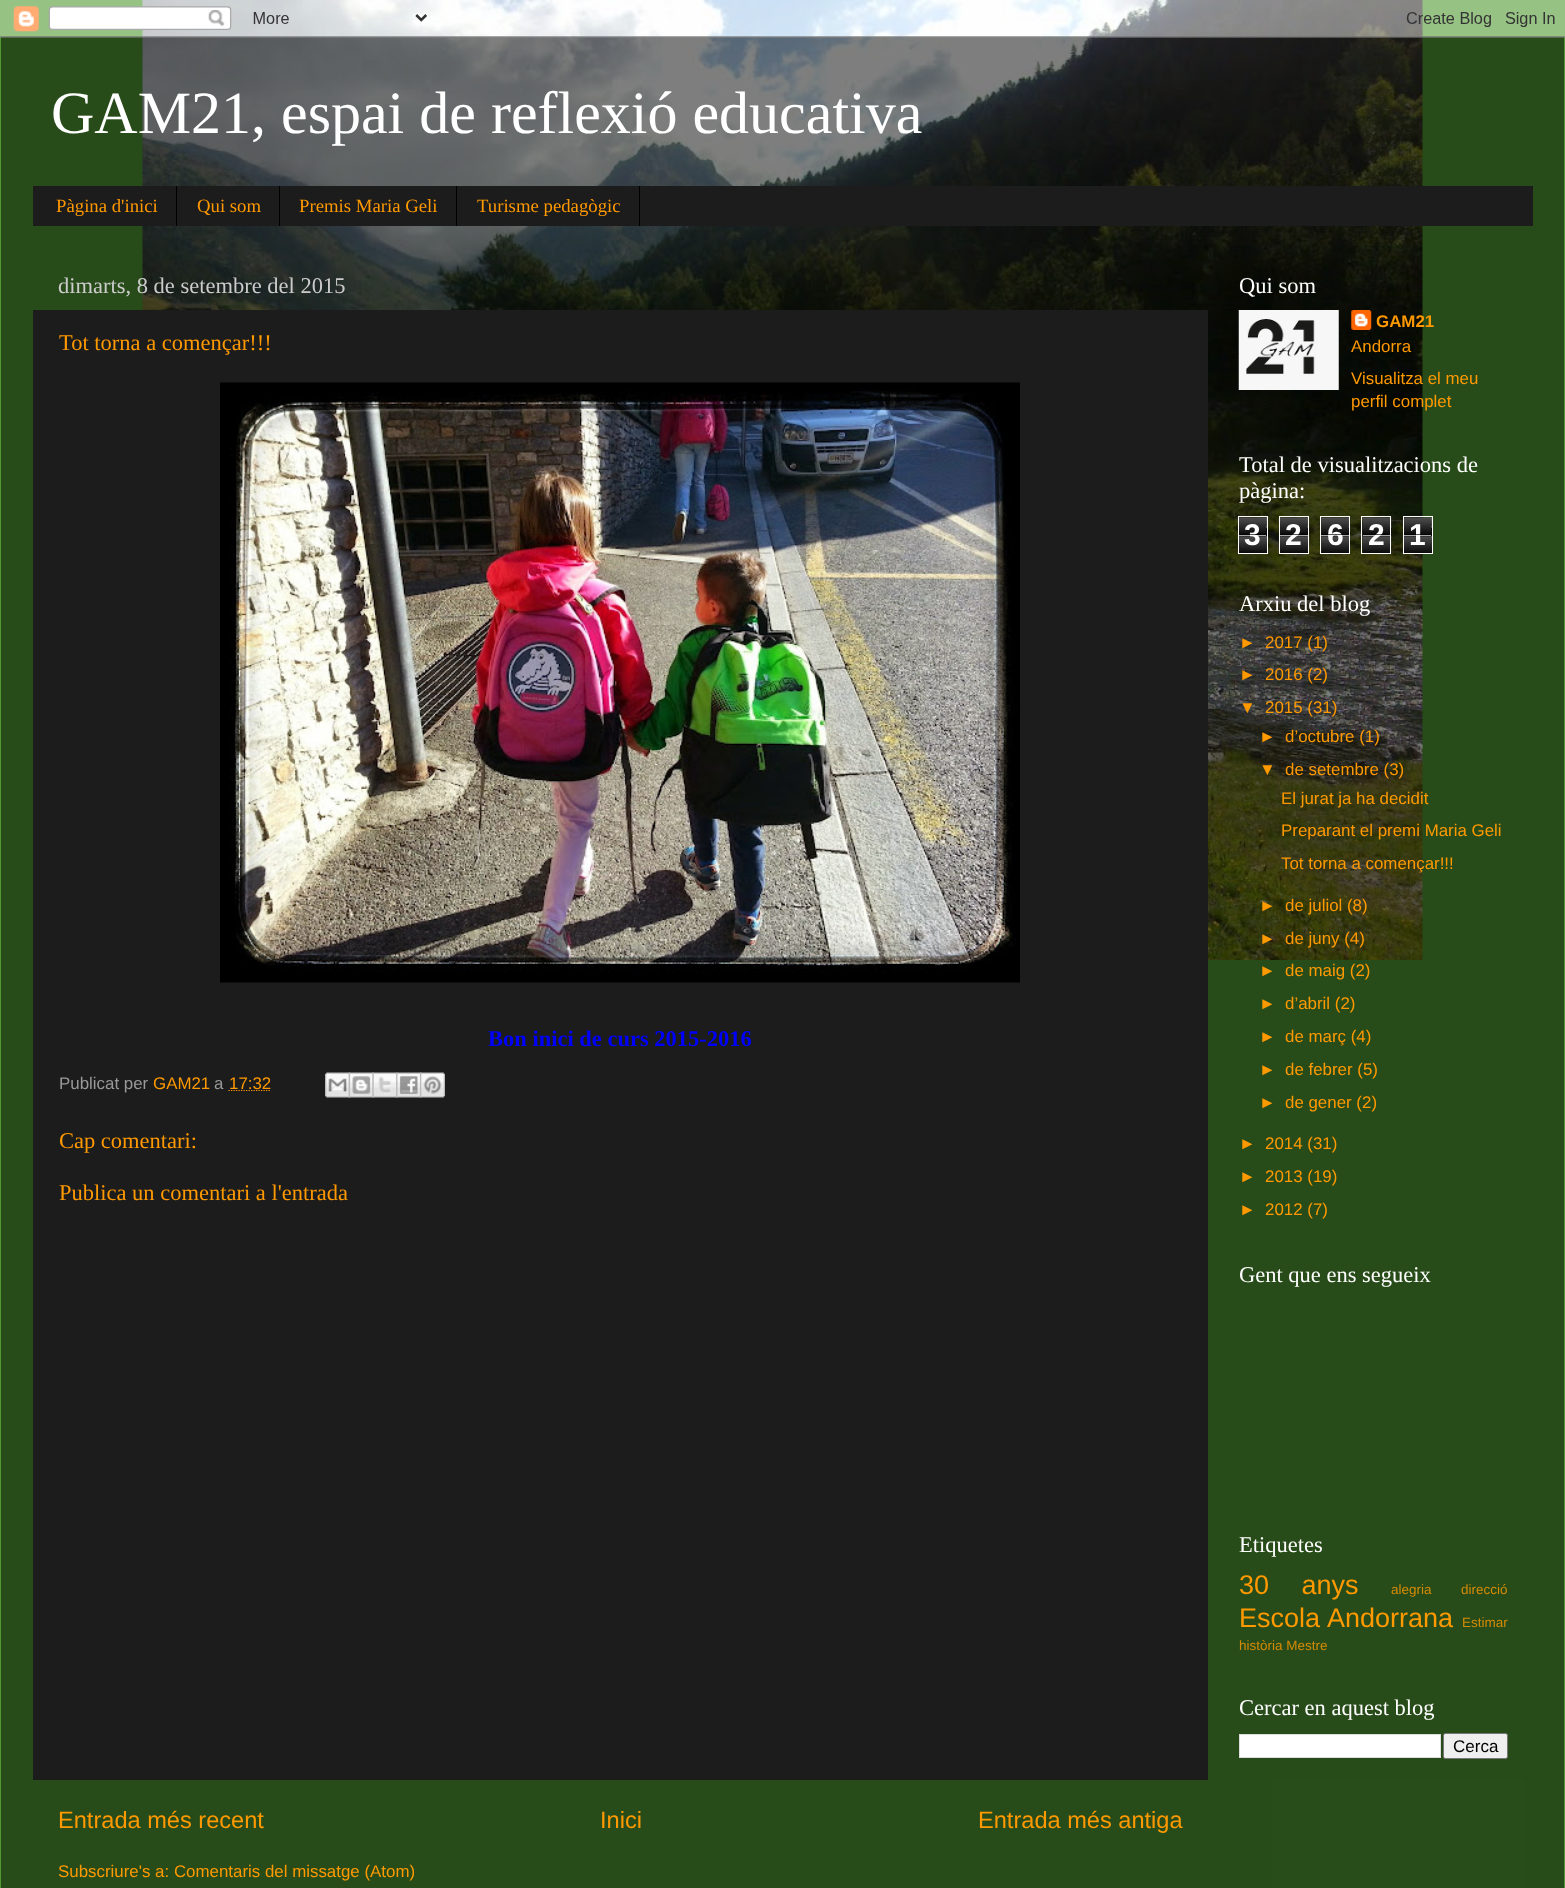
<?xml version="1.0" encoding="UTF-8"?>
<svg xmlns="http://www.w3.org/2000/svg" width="1565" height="1888">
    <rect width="100%" height="100%" fill="#519933"/>
    <image x="142" y="0" width="1281" height="960" href="img_01.png"/>
    <rect x="1" y="37" width="1563" height="1851" fill="#000000" fill-opacity="0.5"/>
    <image x="0" y="0" width="1565" height="38" href="img_02.png"/>
    <text x="51" y="133" font-family="Liberation Serif" font-size="60" fill="#FFFFFF">GAM21, espai de reflexió educativa</text>
    <rect x="33" y="186" width="1500" height="40" fill="#1C1C1C"/>
    <rect x="176" y="186" width="1" height="40" fill="#000000"/>
    <text x="56" y="212" font-family="Liberation Serif" font-size="18.75" fill="#FF9900">Pàgina d'inici</text>
    <rect x="279" y="186" width="1" height="40" fill="#000000"/>
    <text x="197" y="212" font-family="Liberation Serif" font-size="18.75" fill="#FF9900">Qui som</text>
    <rect x="456" y="186" width="1" height="40" fill="#000000"/>
    <text x="299" y="212" font-family="Liberation Serif" font-size="18.75" fill="#FF9900">Premis Maria Geli</text>
    <rect x="639" y="186" width="1" height="40" fill="#000000"/>
    <text x="477" y="212" font-family="Liberation Serif" font-size="18.75" fill="#FF9900">Turisme pedagògic</text>
    <text x="58" y="293" font-family="Liberation Serif" font-size="22.5" fill="#CCCCCC">dimarts, 8 de setembre del 2015</text>
    <rect x="33" y="310" width="1175" height="1470" fill="#1C1C1C"/>
    <text x="59" y="350" font-family="Liberation Serif" font-size="22.5" fill="#FF9900">Tot torna a començar!!!</text>
    <image x="220" y="382" width="800" height="601" href="img_03.png"/>
    <text x="488" y="1046" font-family="Liberation Serif" font-size="22.5" font-weight="700" fill="#0000FF">Bon inici de curs 2015-2016</text>
    <text x="59" y="1089" font-family="Liberation Sans" font-size="16.9" fill="#999999">Publicat per</text>
    <text x="153" y="1089" font-family="Liberation Sans" font-size="16.9" fill="#FF9900">GAM21</text>
    <text x="214" y="1089" font-family="Liberation Sans" font-size="16.9" fill="#999999">a</text>
    <path d="M 228.5 1090.5 H 271" fill="none" stroke="#FF9900" stroke-width="1.2" stroke-dasharray="1.25 1.25"/>
    <text x="229" y="1089" font-family="Liberation Sans" font-size="16.9" fill="#FF9900">17:32</text>
    <image x="325" y="1072" width="25" height="26" href="img_04.png"/>
    <image x="348" y="1072" width="26" height="26" href="img_05.png"/>
    <image x="372" y="1072" width="26" height="26" href="img_06.png"/>
    <image x="396" y="1072" width="26" height="26" href="img_07.png"/>
    <image x="420" y="1072" width="25" height="26" href="img_08.png"/>
    <text x="59" y="1148" font-family="Liberation Serif" font-size="22.5" fill="#FF9900">Cap comentari:</text>
    <text x="59" y="1200" font-family="Liberation Serif" font-size="22.5" fill="#FF9900">Publica un comentari a l'entrada</text>
    <text x="58" y="1828" font-family="Liberation Sans" font-size="23.6" fill="#FF9900">Entrada més recent</text>
    <text x="600" y="1828" font-family="Liberation Sans" font-size="23.6" fill="#FF9900">Inici</text>
    <text x="978" y="1828" font-family="Liberation Sans" font-size="23.6" fill="#FF9900">Entrada més antiga</text>
    <text x="58" y="1877" font-family="Liberation Sans" font-size="16.9" fill="#FF9900">Subscriure's a: Comentaris del missatge (Atom)</text>
    <text x="1239" y="293" font-family="Liberation Serif" font-size="22.5" fill="#FFFFFF">Qui som</text>
    <image x="1238" y="310" width="101" height="80" href="img_09.png"/>
    <image x="1351" y="310" width="21" height="20" href="img_10.png"/>
    <text x="1376" y="327" font-family="Liberation Sans" font-size="16.9" font-weight="700" fill="#FF9900">GAM21</text>
    <text font-family="Liberation Sans" font-size="16.9" fill="#FF9900">
        <tspan x="1351" y="352">Andorra</tspan>
        <tspan x="1351" y="384">Visualitza el meu</tspan>
        <tspan x="1351" y="407">perfil complet</tspan>
    </text>
    <text font-family="Liberation Serif" font-size="22.5" fill="#FFFFFF">
        <tspan x="1239" y="472">Total de visualitzacions de</tspan>
        <tspan x="1239" y="498">pàgina:</tspan>
    </text>
    <image x="1239" y="517" width="28" height="36" href="img_11.png"/>
    <rect x="1238.5" y="516.5" width="29" height="37" fill="none" stroke="#FFFFFF"/>
    <text x="1244" y="545" font-family="Liberation Sans" font-size="30" font-weight="700" fill="#FFFFFF">3</text>
    <rect x="1239" y="534" width="27" height="1" fill="#000000" fill-opacity="0.65"/>
    <rect x="1239" y="535" width="27" height="1" fill="#FFFFFF" fill-opacity="0.65"/>
    <image x="1280" y="517" width="28" height="36" href="img_12.png"/>
    <rect x="1279.5" y="516.5" width="29" height="37" fill="none" stroke="#FFFFFF"/>
    <text x="1285" y="545" font-family="Liberation Sans" font-size="30" font-weight="700" fill="#FFFFFF">2</text>
    <rect x="1280" y="534" width="28" height="1" fill="#000000" fill-opacity="0.65"/>
    <rect x="1280" y="535" width="28" height="1" fill="#FFFFFF" fill-opacity="0.65"/>
    <image x="1321" y="517" width="28" height="36" href="img_13.png"/>
    <rect x="1320.5" y="516.5" width="29" height="37" fill="none" stroke="#FFFFFF"/>
    <text x="1327" y="545" font-family="Liberation Sans" font-size="30" font-weight="700" fill="#FFFFFF">6</text>
    <rect x="1321" y="534" width="28" height="1" fill="#000000" fill-opacity="0.65"/>
    <rect x="1321" y="535" width="28" height="1" fill="#FFFFFF" fill-opacity="0.65"/>
    <image x="1362" y="517" width="30" height="37" href="img_14.png"/>
    <rect x="1361.5" y="516.5" width="29" height="37" fill="none" stroke="#FFFFFF"/>
    <text x="1368" y="545" font-family="Liberation Sans" font-size="30" font-weight="700" fill="#FFFFFF">2</text>
    <rect x="1363" y="534" width="27" height="1" fill="#000000" fill-opacity="0.65"/>
    <rect x="1363" y="535" width="27" height="1" fill="#FFFFFF" fill-opacity="0.65"/>
    <image x="1404" y="517" width="28" height="36" href="img_15.png"/>
    <rect x="1403.5" y="516.5" width="29" height="37" fill="none" stroke="#FFFFFF"/>
    <text x="1409" y="545" font-family="Liberation Sans" font-size="30" font-weight="700" fill="#FFFFFF">1</text>
    <rect x="1404" y="534" width="27" height="1" fill="#000000" fill-opacity="0.65"/>
    <rect x="1404" y="535" width="27" height="1" fill="#FFFFFF" fill-opacity="0.65"/>
    <text x="1239" y="611" font-family="Liberation Serif" font-size="22.5" fill="#FFFFFF">Arxiu del blog</text>
    <text x="1239" y="648" font-family="Liberation Sans" font-size="16.9" fill="#FF9900">►</text>
    <text x="1265" y="648" font-family="Liberation Sans" font-size="16.9" fill="#FF9900">2017 (1)</text>
    <text x="1239" y="680" font-family="Liberation Sans" font-size="16.9" fill="#FF9900">►</text>
    <text x="1265" y="680" font-family="Liberation Sans" font-size="16.9" fill="#FF9900">2016 (2)</text>
    <text x="1239" y="713" font-family="Liberation Sans" font-size="16.9" fill="#FF9900">▼</text>
    <text x="1265" y="713" font-family="Liberation Sans" font-size="16.9" fill="#FF9900">2015 (31)</text>
    <text x="1259" y="742" font-family="Liberation Sans" font-size="16.9" fill="#FF9900">►</text>
    <text x="1285" y="742" font-family="Liberation Sans" font-size="16.9" fill="#FF9900">d’octubre (1)</text>
    <text x="1259" y="775" font-family="Liberation Sans" font-size="16.9" fill="#FF9900">▼</text>
    <text x="1285" y="775" font-family="Liberation Sans" font-size="16.9" fill="#FF9900">de setembre (3)</text>
    <text font-family="Liberation Sans" font-size="16.9" fill="#FF9900">
        <tspan x="1281" y="804">El jurat ja ha decidit</tspan>
        <tspan x="1281" y="836">Preparant el premi Maria Geli</tspan>
        <tspan x="1281" y="869">Tot torna a començar!!!</tspan>
    </text>
    <text x="1259" y="911" font-family="Liberation Sans" font-size="16.9" fill="#FF9900">►</text>
    <text x="1285" y="911" font-family="Liberation Sans" font-size="16.9" fill="#FF9900">de juliol (8)</text>
    <text x="1259" y="944" font-family="Liberation Sans" font-size="16.9" fill="#FF9900">►</text>
    <text x="1285" y="944" font-family="Liberation Sans" font-size="16.9" fill="#FF9900">de juny (4)</text>
    <text x="1259" y="976" font-family="Liberation Sans" font-size="16.9" fill="#FF9900">►</text>
    <text x="1285" y="976" font-family="Liberation Sans" font-size="16.9" fill="#FF9900">de maig (2)</text>
    <text x="1259" y="1009" font-family="Liberation Sans" font-size="16.9" fill="#FF9900">►</text>
    <text x="1285" y="1009" font-family="Liberation Sans" font-size="16.9" fill="#FF9900">d’abril (2)</text>
    <text x="1259" y="1042" font-family="Liberation Sans" font-size="16.9" fill="#FF9900">►</text>
    <text x="1285" y="1042" font-family="Liberation Sans" font-size="16.9" fill="#FF9900">de març (4)</text>
    <text x="1259" y="1075" font-family="Liberation Sans" font-size="16.9" fill="#FF9900">►</text>
    <text x="1285" y="1075" font-family="Liberation Sans" font-size="16.9" fill="#FF9900">de febrer (5)</text>
    <text x="1259" y="1108" font-family="Liberation Sans" font-size="16.9" fill="#FF9900">►</text>
    <text x="1285" y="1108" font-family="Liberation Sans" font-size="16.9" fill="#FF9900">de gener (2)</text>
    <text x="1239" y="1149" font-family="Liberation Sans" font-size="16.9" fill="#FF9900">►</text>
    <text x="1265" y="1149" font-family="Liberation Sans" font-size="16.9" fill="#FF9900">2014 (31)</text>
    <text x="1239" y="1182" font-family="Liberation Sans" font-size="16.9" fill="#FF9900">►</text>
    <text x="1265" y="1182" font-family="Liberation Sans" font-size="16.9" fill="#FF9900">2013 (19)</text>
    <text x="1239" y="1215" font-family="Liberation Sans" font-size="16.9" fill="#FF9900">►</text>
    <text x="1265" y="1215" font-family="Liberation Sans" font-size="16.9" fill="#FF9900">2012 (7)</text>
    <text x="1239" y="1282" font-family="Liberation Serif" font-size="22.5" fill="#FFFFFF">Gent que ens segueix</text>
    <text x="1239" y="1552" font-family="Liberation Serif" font-size="22.5" fill="#FFFFFF">Etiquetes</text>
    <text x="1239" y="1594" word-spacing="25" font-family="Liberation Sans" font-size="27" fill="#FF9900">30 anys</text>
    <text x="1391" y="1594" font-family="Liberation Sans" font-size="13.5" fill="#D48A05">alegria</text>
    <text x="1461" y="1594" font-family="Liberation Sans" font-size="13.5" fill="#D48A05">direcció</text>
    <text x="1239" y="1627" word-spacing="1" font-family="Liberation Sans" font-size="27" fill="#FF9900">Escola Andorrana</text>
    <text x="1462" y="1627" font-family="Liberation Sans" font-size="13.5" fill="#D48A05">Estimar</text>
    <text x="1239" y="1650" font-family="Liberation Sans" font-size="13.5" fill="#D48A05">història Mestre</text>
    <text x="1239" y="1715" font-family="Liberation Serif" font-size="22.5" fill="#FFFFFF">Cercar en aquest blog</text>
    <rect x="1239.5" y="1734.5" width="201" height="23" fill="#FFFFFF" stroke="#DDDDDD"/>
    <rect x="1443.5" y="1733.5" width="64" height="25" rx="2" fill="#EFEFEF" stroke="#767676"/>
    <text x="1453" y="1752" font-family="Liberation Sans" font-size="17" fill="#000000">Cerca</text>
</svg>
